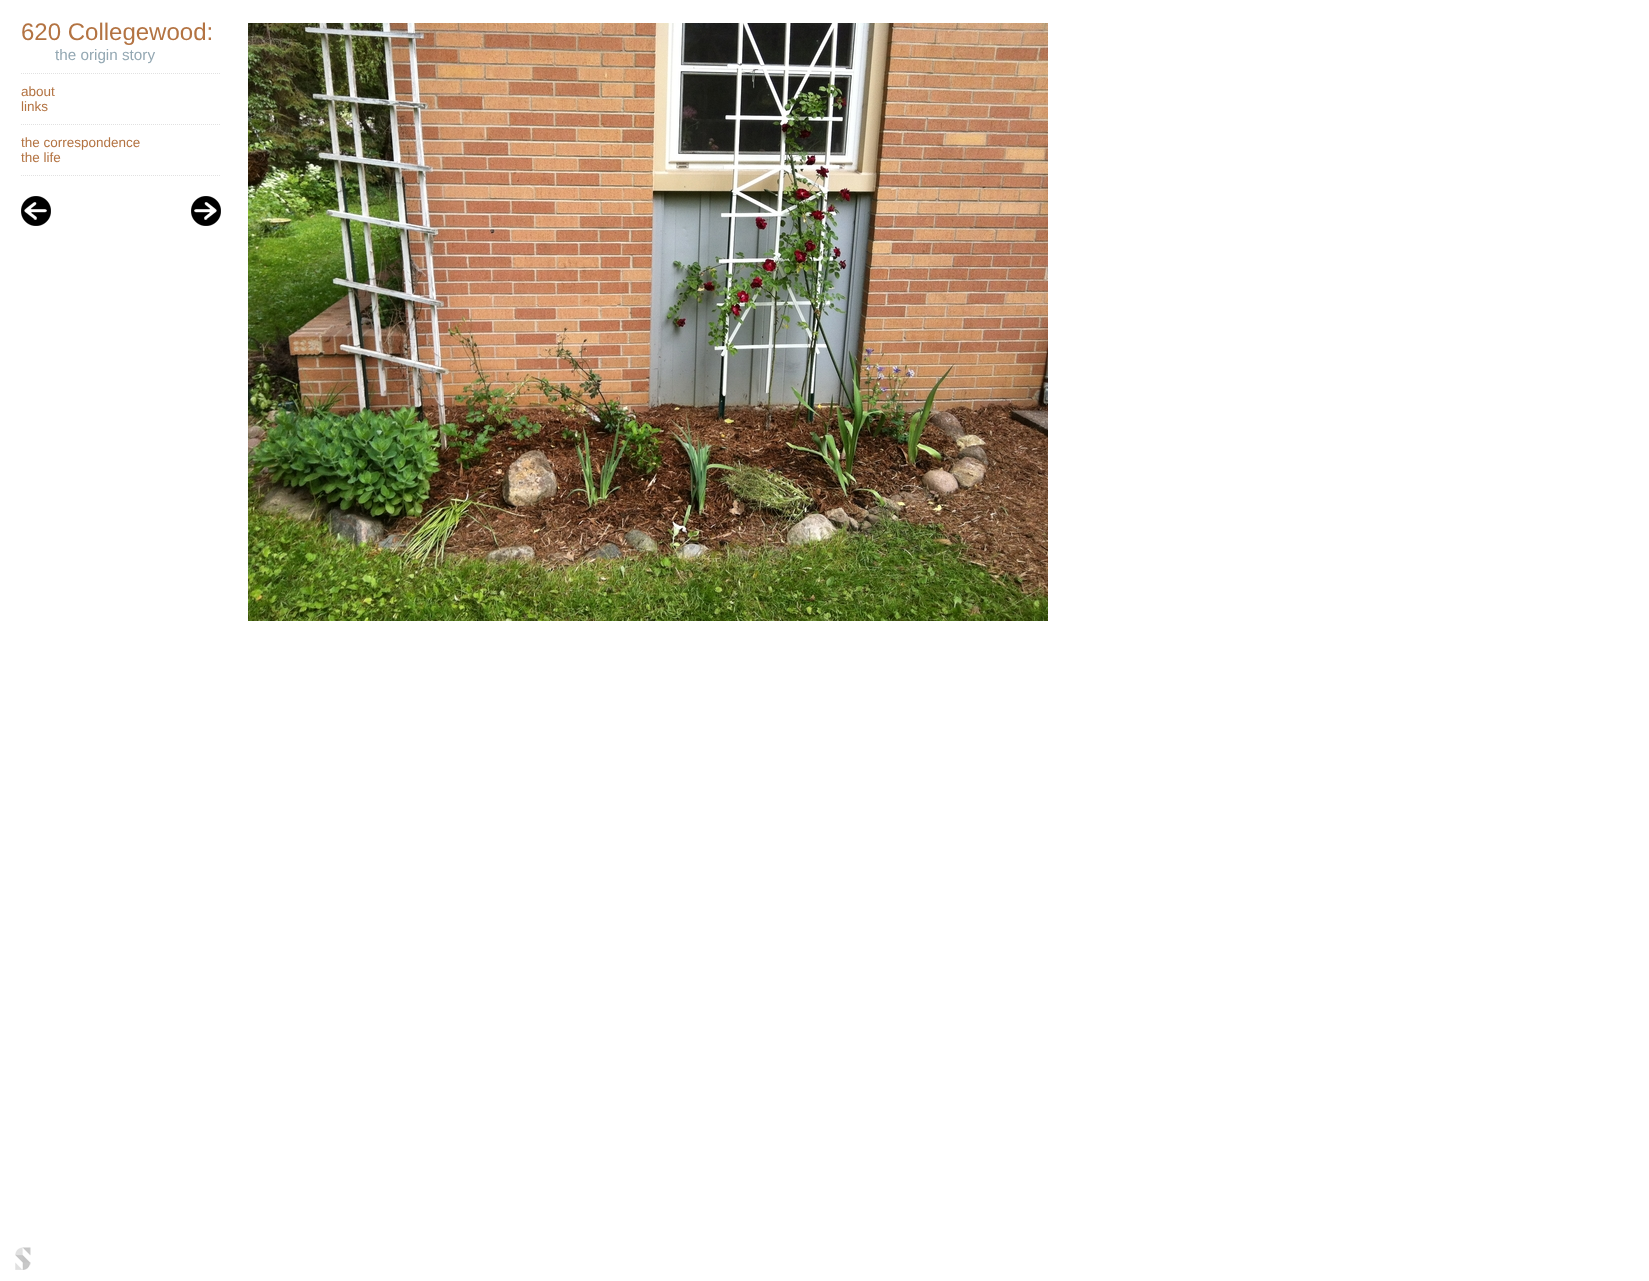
<?xml version="1.0" encoding="UTF-8"?>
<svg xmlns="http://www.w3.org/2000/svg" width="1649" height="1281">
    <rect width="100%" height="100%" fill="#FFFFFF"/>
    <text x="21" y="40" font-family="Liberation Sans" font-size="24" fill="#B37342">620 Collegewood:</text>
    <text x="55" y="60" font-family="Liberation Sans" font-size="15.25" fill="#94A8B3">the origin story</text>
    <path d="M 21 73.5 H 221" fill="none" stroke="#E1E1E1" stroke-dasharray="1 1"/>
    <path d="M 21 124.5 H 221" fill="none" stroke="#E1E1E1" stroke-dasharray="1 1"/>
    <text font-family="Liberation Sans" font-size="13.5" fill="#B37342">
        <tspan x="21" y="96">about</tspan>
        <tspan x="21" y="111">links</tspan>
    </text>
    <path d="M 21 175.5 H 221" fill="none" stroke="#E1E1E1" stroke-dasharray="1 1"/>
    <text font-family="Liberation Sans" font-size="13.5" fill="#B37342">
        <tspan x="21" y="147">the correspondence</tspan>
        <tspan x="21" y="162">the life</tspan>
    </text>
    <image x="21" y="196" width="30" height="30" href="img_01.png"/>
    <image x="191" y="196" width="30" height="30" href="img_02.png"/>
    <image x="248" y="23" width="800" height="598" href="img_03.png"/>
    <image x="15" y="1247" width="16" height="23" href="img_04.png"/>
</svg>
